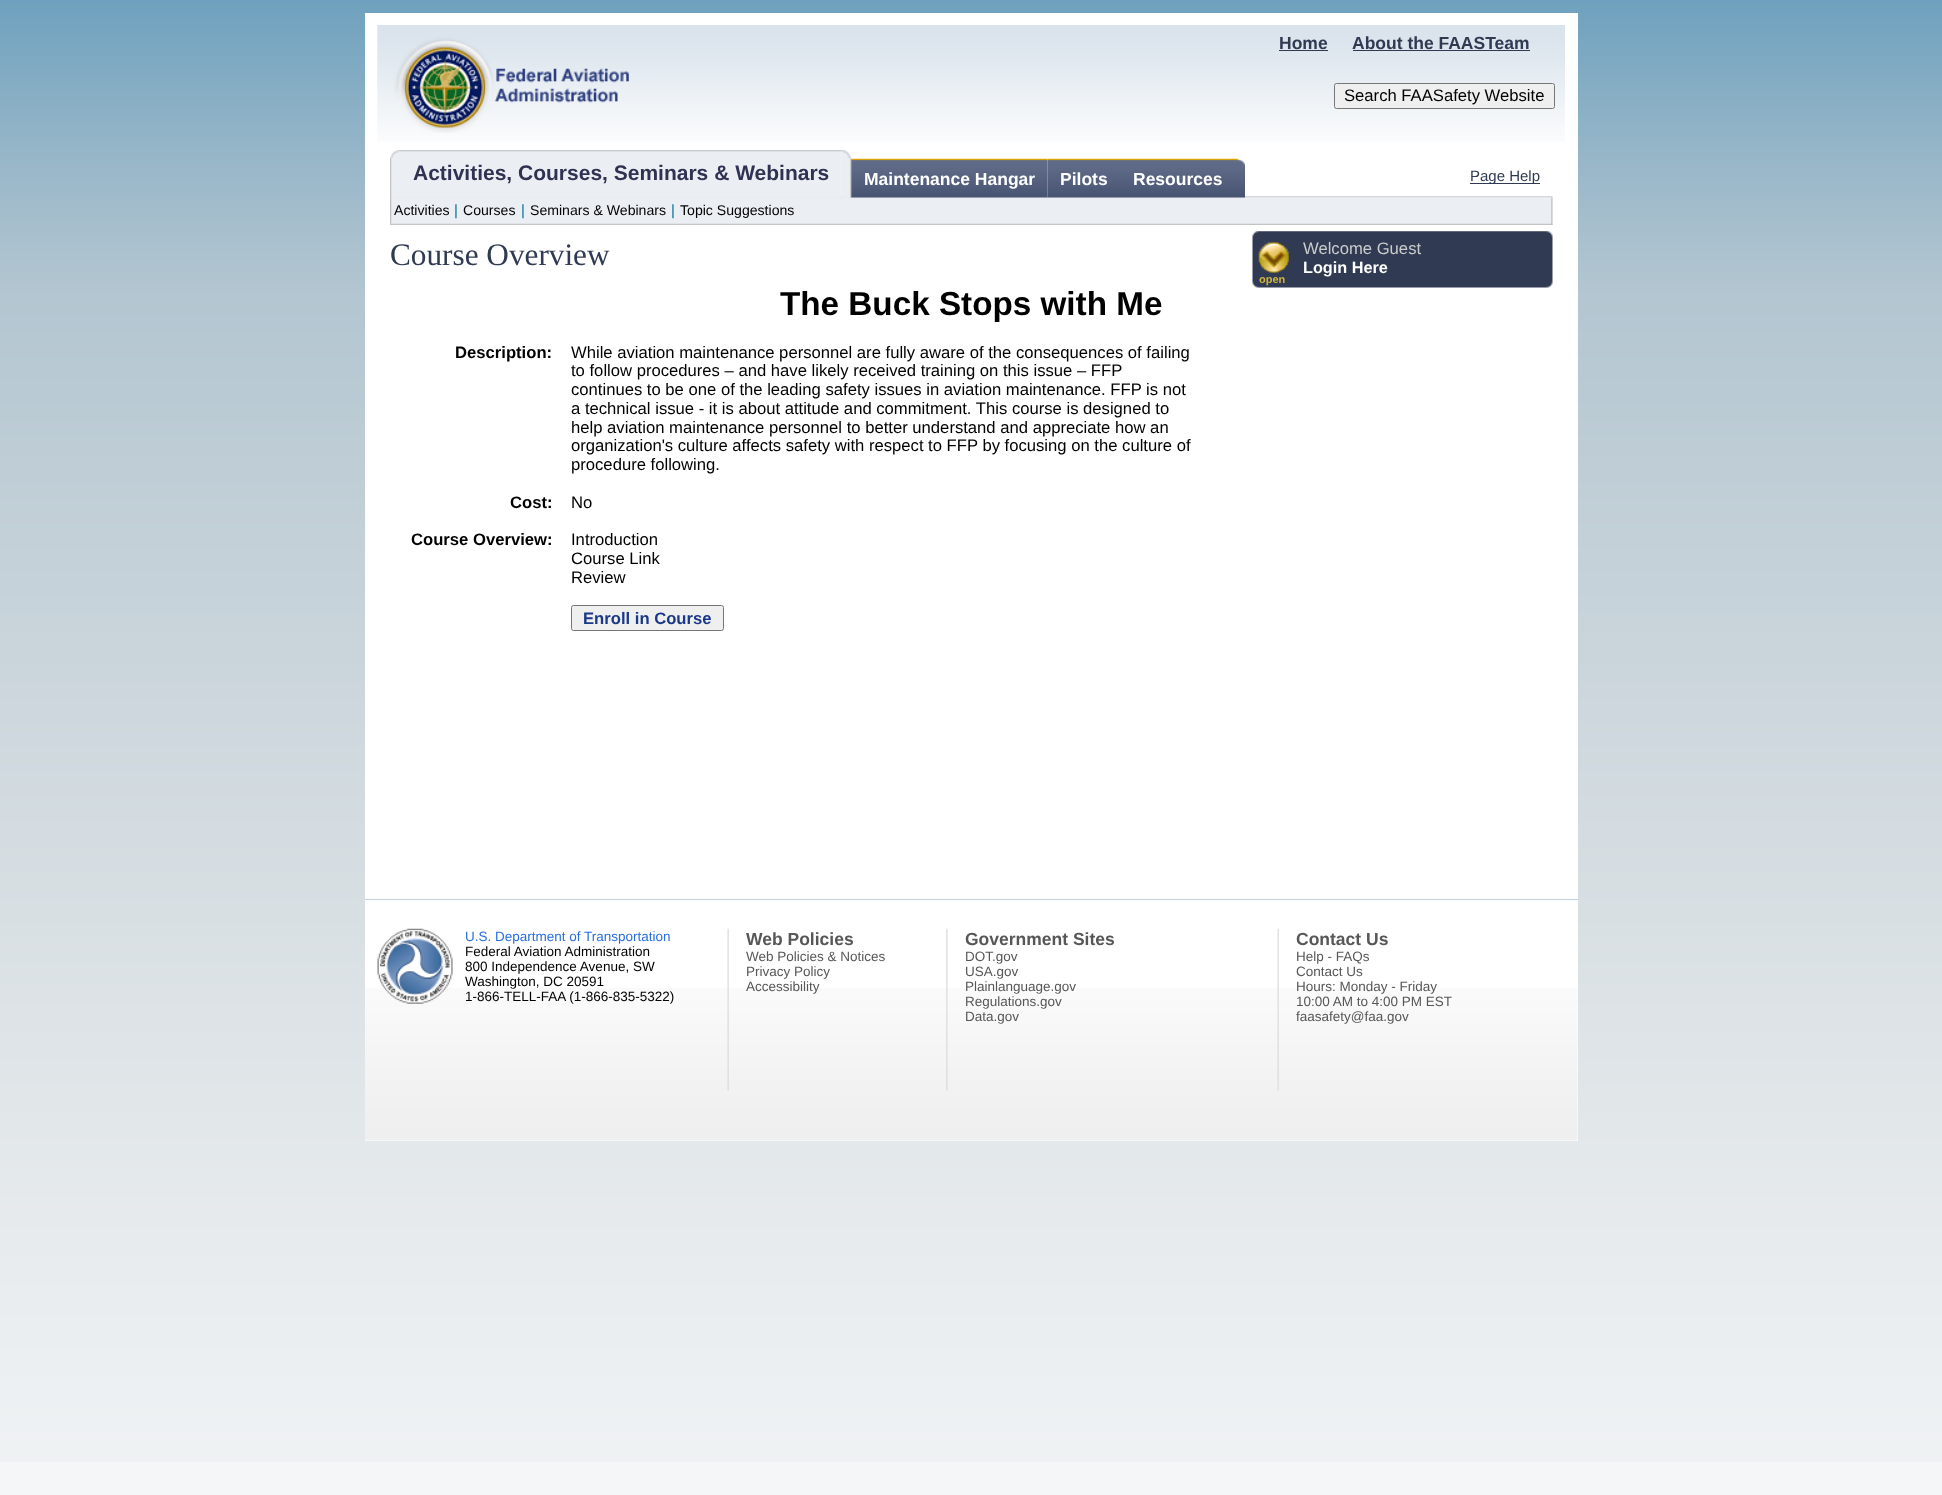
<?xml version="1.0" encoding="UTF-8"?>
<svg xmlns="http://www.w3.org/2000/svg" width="1942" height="1495">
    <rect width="100%" height="100%" fill="#F4F6F7"/>
    <image x="0" y="0" width="1942" height="1462" href="img_01.png"/>
    <rect x="365" y="13" width="1213" height="1128" fill="#FFFFFF"/>
    <image x="377" y="25" width="1188" height="117" href="img_02.png"/>
    <image x="377" y="25" width="252" height="108" href="img_03.png"/>
    <text x="1279" y="49" font-family="Liberation Sans" font-size="17.5" font-weight="700" fill="#303A52">Home</text>
    <rect x="1279" y="50" width="49" height="1" fill="#303A52"/>
    <text x="1352" y="49" font-family="Liberation Sans" font-size="17.5" font-weight="700" fill="#303A52">About the FAASTeam</text>
    <rect x="1353" y="50" width="177" height="1" fill="#303A52"/>
    <rect x="1334.5" y="83.5" width="220" height="25" rx="2" fill="#EFEFEF" stroke="#767676"/>
    <text x="1344" y="101" font-family="Liberation Sans" font-size="16.65" fill="#000000">Search FAASafety Website</text>
    <image x="390" y="196" width="1163" height="2" href="img_04.png"/>
    <image x="390" y="197" width="1163" height="28" href="img_12.png"/>
    <image x="390" y="150" width="10" height="48" href="img_05.png"/>
    <image x="400" y="150" width="441" height="48" href="img_06.png"/>
    <text x="413" y="180" font-family="Liberation Sans" font-size="21" font-weight="700" fill="#303252">Activities, Courses, Seminars &amp; Webinars</text>
    <image x="841" y="150" width="11" height="48" href="img_07.png"/>
    <image x="851" y="158" width="197" height="40" href="img_08.png"/>
    <text x="864" y="185" font-family="Liberation Sans" font-size="17.5" font-weight="700" fill="#FFFFFF">Maintenance Hangar</text>
    <image x="1047" y="158" width="73" height="40" href="img_09.png"/>
    <text x="1060" y="185" font-family="Liberation Sans" font-size="17.5" font-weight="700" fill="#FFFFFF">Pilots</text>
    <image x="1120" y="158" width="115" height="40" href="img_10.png"/>
    <text x="1133" y="185" font-family="Liberation Sans" font-size="17.5" font-weight="700" fill="#FFFFFF">Resources</text>
    <image x="1235" y="158" width="10" height="40" href="img_11.png"/>
    <rect x="1470" y="183" width="70" height="1" fill="#303A52"/>
    <text x="1470" y="181" font-family="Liberation Sans" font-size="15" fill="#303A52">Page Help</text>
    <image x="390" y="197" width="2" height="28" href="img_13.png"/>
    <text x="394" y="215" font-family="Liberation Sans" font-size="14.1" fill="#000000">Activities</text>
    <text x="454" y="215" font-family="Liberation Sans" font-size="15" fill="#026F9C">|</text>
    <text x="463" y="215" font-family="Liberation Sans" font-size="14.1" fill="#000000">Courses</text>
    <text x="521" y="215" font-family="Liberation Sans" font-size="15" fill="#026F9C">|</text>
    <text x="530" y="215" font-family="Liberation Sans" font-size="14.1" fill="#000000">Seminars &amp; Webinars</text>
    <text x="671" y="215" font-family="Liberation Sans" font-size="15" fill="#026F9C">|</text>
    <text x="680" y="215" font-family="Liberation Sans" font-size="14.1" fill="#000000">Topic Suggestions</text>
    <image x="1551" y="197" width="2" height="28" href="img_14.png"/>
    <text x="390" y="265" font-family="Liberation Serif" font-size="31.25" fill="#303A52">Course Overview</text>
    <image x="1252" y="231" width="301" height="57" href="img_15.png"/>
    <text x="1303" y="254" font-family="Liberation Sans" font-size="16.65" fill="#CCCCCC">Welcome Guest</text>
    <text x="1303" y="273" font-family="Liberation Sans" font-size="16.25" font-weight="700" fill="#FFFFFF">Login Here</text>
    <image x="1258" y="242" width="31" height="31" href="img_16.png"/>
    <text x="1259" y="283" font-family="Liberation Sans" font-size="11" font-weight="700" fill="#D1B43C">open</text>
    <text x="780" y="315" font-family="Liberation Sans" font-size="33.25" font-weight="700" fill="#000000">The Buck Stops with Me</text>
    <text x="455" y="358" font-family="Liberation Sans" font-size="16.65" font-weight="700" fill="#000000">Description:</text>
    <text font-family="Liberation Sans" font-size="16.65" fill="#000000">
        <tspan x="571" y="358">While aviation maintenance personnel are fully aware of the consequences of failing</tspan>
        <tspan x="571" y="376">to follow procedures – and have likely received training on this issue – FFP</tspan>
        <tspan x="571" y="395">continues to be one of the leading safety issues in aviation maintenance. FFP is not</tspan>
        <tspan x="571" y="414">a technical issue - it is about attitude and commitment. This course is designed to</tspan>
        <tspan x="571" y="433">help aviation maintenance personnel to better understand and appreciate how an</tspan>
        <tspan x="571" y="451">organization's culture affects safety with respect to FFP by focusing on the culture of</tspan>
        <tspan x="571" y="470">procedure following.</tspan>
    </text>
    <text x="510" y="508" font-family="Liberation Sans" font-size="16.65" font-weight="700" fill="#000000">Cost:</text>
    <text x="571" y="508" font-family="Liberation Sans" font-size="16.65" fill="#000000">No</text>
    <text x="411" y="545" font-family="Liberation Sans" font-size="16.65" font-weight="700" fill="#000000">Course Overview:</text>
    <text font-family="Liberation Sans" font-size="16.65" fill="#000000">
        <tspan x="571" y="545">Introduction</tspan>
        <tspan x="571" y="564">Course Link</tspan>
        <tspan x="571" y="583">Review</tspan>
    </text>
    <rect x="571.5" y="605.5" width="152" height="25" rx="2" fill="#EFEFEF" stroke="#767676"/>
    <text x="583" y="624" font-family="Liberation Sans" font-size="16.65" font-weight="700" fill="#193888">Enroll in Course</text>
    <image x="365" y="988" width="1213" height="153" href="img_17.png"/>
    <rect x="365" y="899" width="1213" height="1" fill="#C3D2DF"/>
    <image x="377" y="928" width="76" height="76" href="img_18.png"/>
    <text x="465" y="941" font-family="Liberation Sans" font-size="13.5" fill="#2870DF">U.S. Department of Transportation</text>
    <text font-family="Liberation Sans" font-size="13.5" fill="#000000">
        <tspan x="465" y="956">Federal Aviation Administration</tspan>
        <tspan x="465" y="971">800 Independence Avenue, SW</tspan>
        <tspan x="465" y="986">Washington, DC 20591</tspan>
        <tspan x="465" y="1001">1-866-TELL-FAA (1-866-835-5322)</tspan>
    </text>
    <image x="727" y="928" width="2" height="163" href="img_19.png"/>
    <text x="746" y="945" font-family="Liberation Sans" font-size="17.5" font-weight="700" fill="#575757">Web Policies</text>
    <text font-family="Liberation Sans" font-size="13.5" fill="#575757">
        <tspan x="746" y="961">Web Policies &amp; Notices</tspan>
        <tspan x="746" y="976">Privacy Policy</tspan>
        <tspan x="746" y="991">Accessibility</tspan>
    </text>
    <image x="946" y="928" width="2" height="163" href="img_20.png"/>
    <text x="965" y="945" font-family="Liberation Sans" font-size="17.5" font-weight="700" fill="#575757">Government Sites</text>
    <text font-family="Liberation Sans" font-size="13.5" fill="#575757">
        <tspan x="965" y="961">DOT.gov</tspan>
        <tspan x="965" y="976">USA.gov</tspan>
        <tspan x="965" y="991">Plainlanguage.gov</tspan>
        <tspan x="965" y="1006">Regulations.gov</tspan>
        <tspan x="965" y="1021">Data.gov</tspan>
    </text>
    <image x="1277" y="928" width="2" height="163" href="img_19.png"/>
    <text x="1296" y="945" font-family="Liberation Sans" font-size="17.5" font-weight="700" fill="#575757">Contact Us</text>
    <text font-family="Liberation Sans" font-size="13.5" fill="#575757">
        <tspan x="1296" y="961">Help - FAQs</tspan>
        <tspan x="1296" y="976">Contact Us</tspan>
        <tspan x="1296" y="991">Hours: Monday - Friday</tspan>
        <tspan x="1296" y="1006">10:00 AM to 4:00 PM EST</tspan>
        <tspan x="1296" y="1021">faasafety@faa.gov</tspan>
    </text>
</svg>
